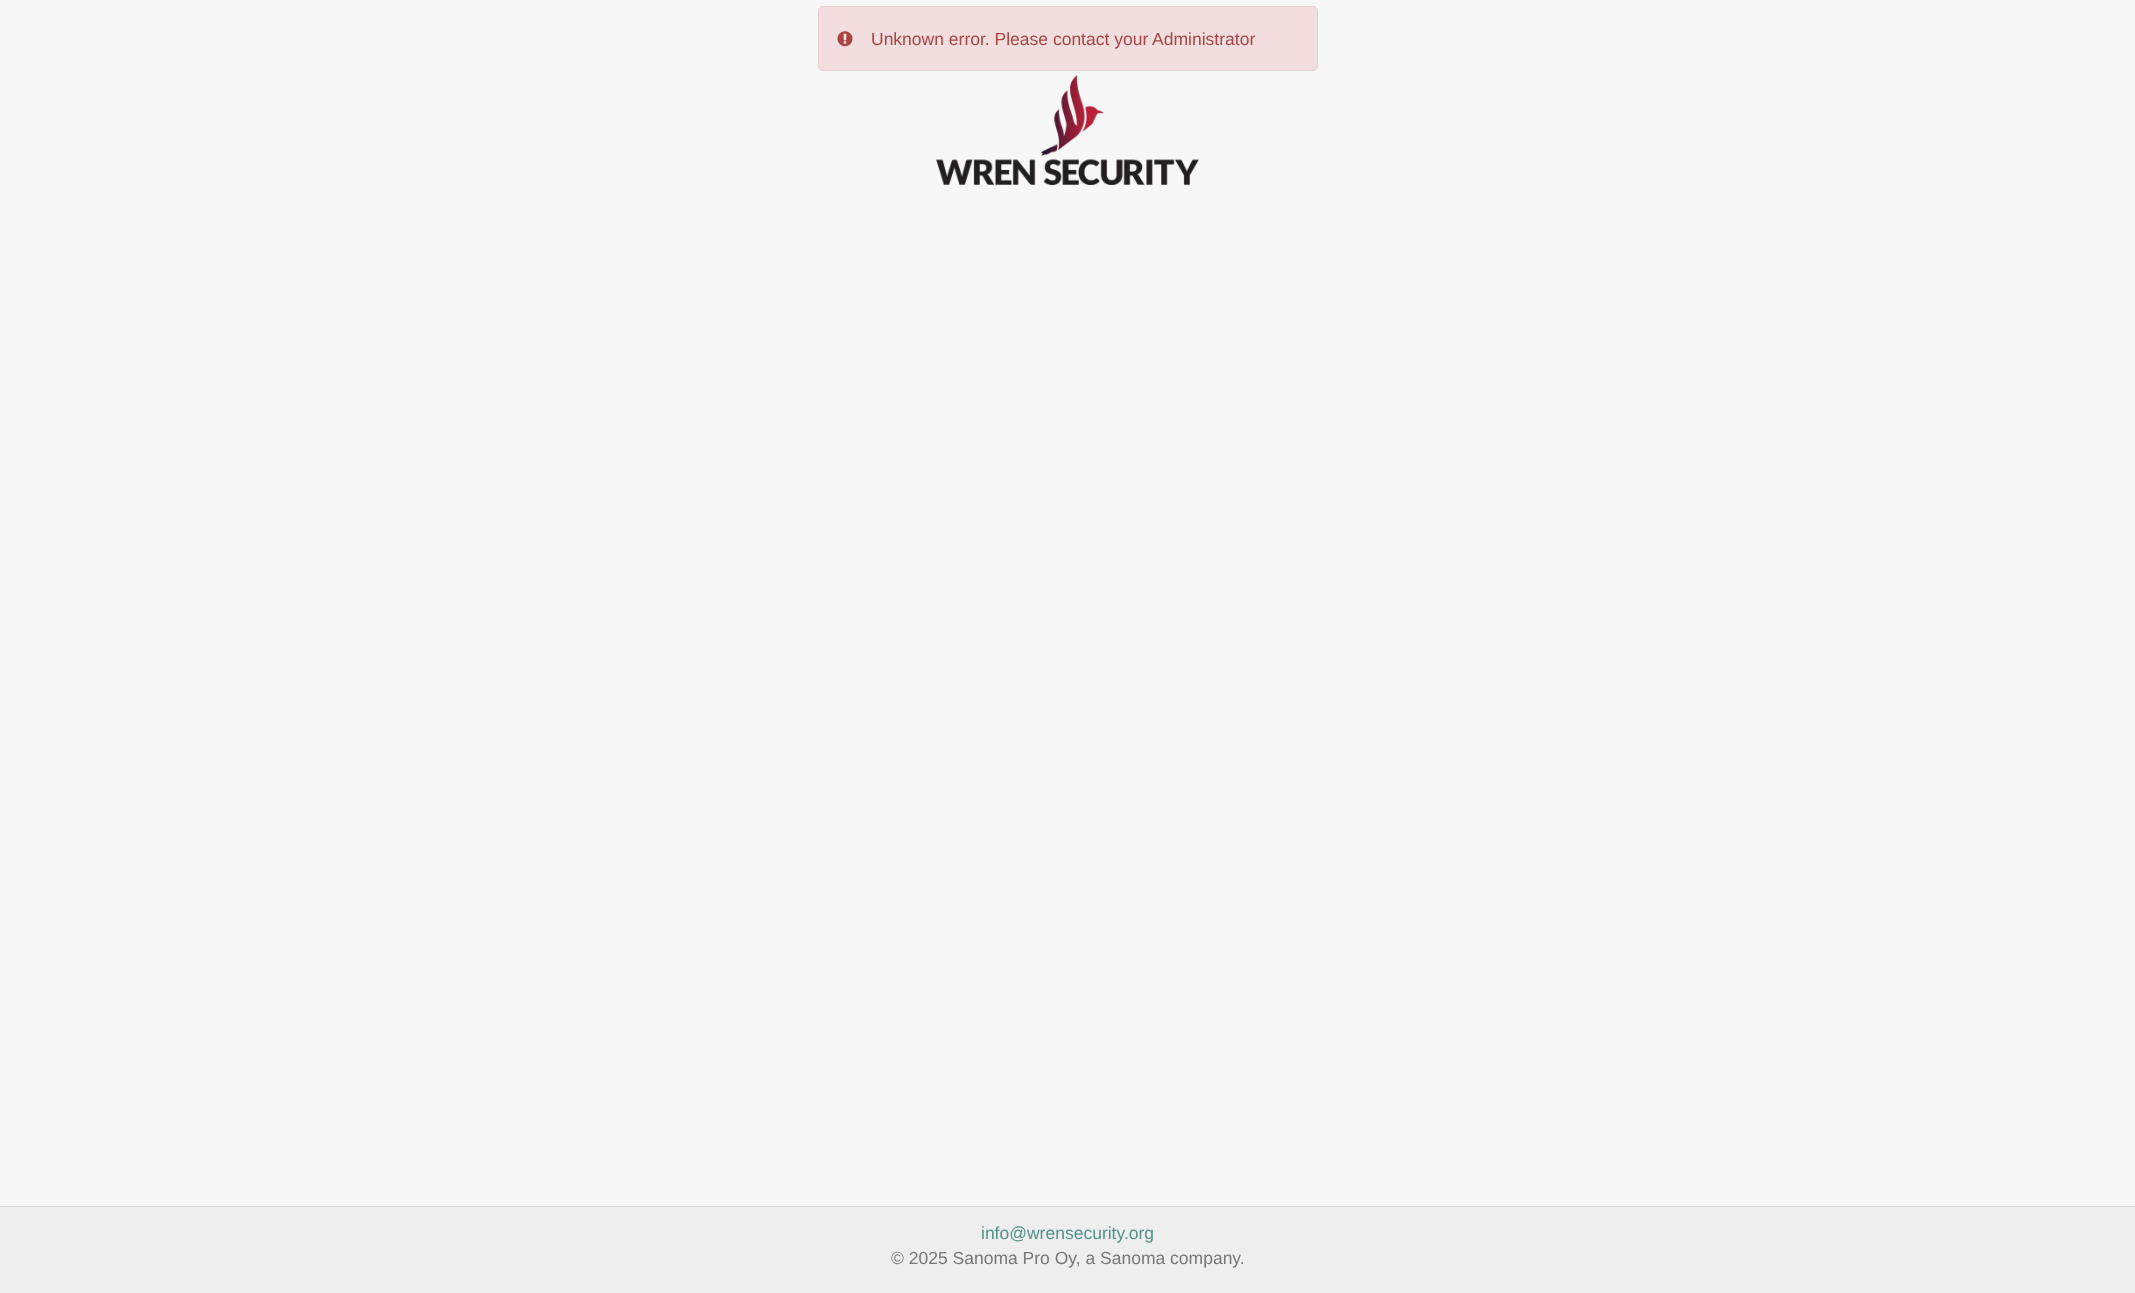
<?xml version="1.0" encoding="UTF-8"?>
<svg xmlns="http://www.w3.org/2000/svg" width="2135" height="1293">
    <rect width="100%" height="100%" fill="#F7F7F7"/>
    <rect x="818.5" y="6.5" width="499" height="64" rx="4.5" fill="#F2DEDE" stroke="#EBCCD1"/>
    <image x="837" y="31" width="16" height="16" href="img_01.png"/>
    <text x="871" y="45" font-family="Liberation Sans" font-size="17.5" fill="#A94442">Unknown error. Please contact your Administrator</text>
    <image x="936" y="75" width="263" height="110" href="img_02.png"/>
    <rect x="0" y="1207" width="2135" height="86" fill="#EEEEEE"/>
    <rect x="0" y="1206" width="2135" height="1" fill="#D6D6D6"/>
    <text x="981" y="1239" font-family="Liberation Sans" font-size="17.5" fill="#519387">info@wrensecurity.org</text>
    <text x="891" y="1264" font-family="Liberation Sans" font-size="17.5" fill="#777777">© 2025 Sanoma Pro Oy, a Sanoma company.</text>
</svg>
